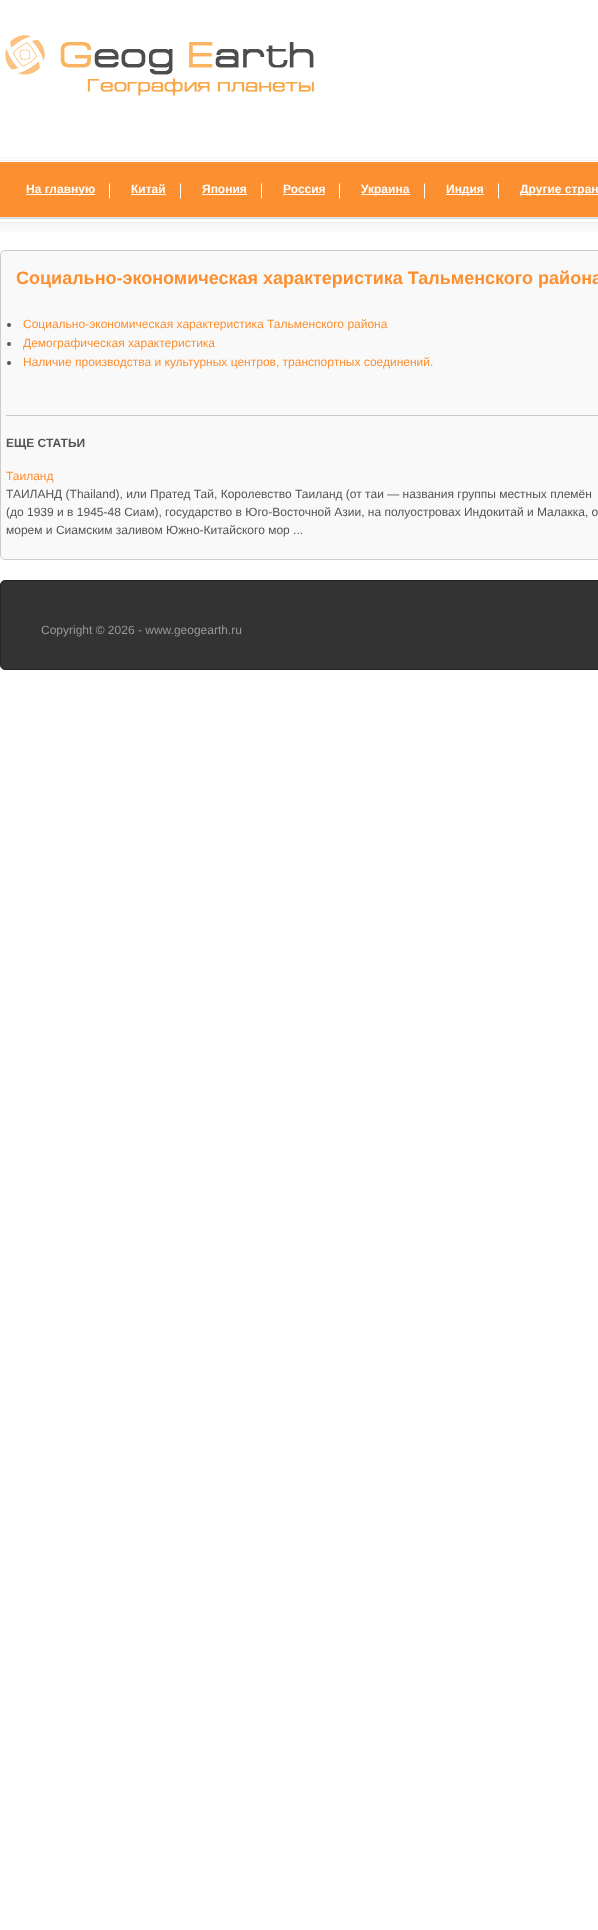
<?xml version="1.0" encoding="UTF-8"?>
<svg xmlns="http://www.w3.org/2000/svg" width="598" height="1930">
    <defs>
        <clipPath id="clip1"><rect x="520" y="170" width="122" height="48"/></clipPath>
    </defs>
    <rect width="100%" height="100%" fill="#FFFFFF"/>
    <image x="0" y="157" width="598" height="75" href="img_01.png"/>
    <image x="5" y="35" width="309" height="61" href="img_02.png"/>
    <image x="109" y="183" width="1" height="16" href="img_03.png"/>
    <rect x="26" y="194" width="69" height="1" fill="#FEFEFE"/>
    <text x="26" y="193" font-family="Liberation Sans" font-size="12" font-weight="700" fill="#FEFEFE">На главную</text>
    <image x="180" y="183" width="1" height="16" href="img_03.png"/>
    <text x="131" y="193" font-family="Liberation Sans" font-size="12" font-weight="700" fill="#FEFEFE">Китай</text>
    <rect x="131" y="194" width="35" height="1" fill="#FEFEFE"/>
    <image x="261" y="183" width="1" height="16" href="img_03.png"/>
    <text x="202" y="193" font-family="Liberation Sans" font-size="12" font-weight="700" fill="#FEFEFE">Япония</text>
    <rect x="202" y="194" width="45" height="1" fill="#FEFEFE"/>
    <image x="339" y="183" width="1" height="16" href="img_03.png"/>
    <text x="283" y="193" font-family="Liberation Sans" font-size="12" font-weight="700" fill="#FEFEFE">Россия</text>
    <rect x="283" y="194" width="42" height="1" fill="#FEFEFE"/>
    <image x="424" y="183" width="1" height="16" href="img_03.png"/>
    <rect x="361" y="194" width="49" height="1" fill="#FEFEFE"/>
    <text x="361" y="193" font-family="Liberation Sans" font-size="12" font-weight="700" fill="#FEFEFE">Украина</text>
    <image x="498" y="183" width="1" height="16" href="img_03.png"/>
    <rect x="446" y="194" width="38" height="1" fill="#FEFEFE"/>
    <text x="446" y="193" font-family="Liberation Sans" font-size="12" font-weight="700" fill="#FEFEFE">Индия</text>
    <rect x="520" y="194" width="78" height="1" fill="#FEFEFE"/>
    <g clip-path="url(#clip1)">
        <text x="520" y="193" font-family="Liberation Sans" font-size="12" font-weight="700" fill="#FEFEFE">Другие стран</text>
    </g>
    <rect x="0.5" y="250.5" width="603" height="309" rx="4.5" fill="#F9F9F9" stroke="#CCCCCC"/>
    <rect x="6" y="415" width="592" height="1" fill="#C8C8C8"/>
    <text x="16" y="284" font-family="Liberation Sans" font-size="18" font-weight="700" fill="#FC8F30">Социально-экономическая характеристика Тальменского района</text>
    <circle cx="9" cy="325" r="2" fill="#555555"/>
    <text x="23" y="328" font-family="Liberation Sans" font-size="12" fill="#FC8F30">Социально-экономическая характеристика Тальменского района</text>
    <circle cx="9" cy="344" r="2" fill="#555555"/>
    <text x="23" y="347" font-family="Liberation Sans" font-size="12" fill="#FC8F30">Демографическая характеристика</text>
    <circle cx="9" cy="363" r="2" fill="#555555"/>
    <text x="23" y="366" font-family="Liberation Sans" font-size="12" fill="#FC8F30">Наличие производства и культурных центров, транспортных соединений.</text>
    <text x="6" y="447" font-family="Liberation Sans" font-size="12" font-weight="700" fill="#555555">ЕЩЕ СТАТЬИ</text>
    <text x="6" y="480" font-family="Liberation Sans" font-size="12" fill="#FC8F30">Таиланд</text>
    <text font-family="Liberation Sans" font-size="12" fill="#555555">
        <tspan x="6" y="498">ТАИЛАНД (Thailand), или Пратед Тай, Королевство Таиланд (от таи — названия группы местных племён</tspan>
        <tspan x="6" y="516">(до 1939 и в 1945-48 Сиам), государство в Юго-Восточной Азии, на полуостровах Индокитай и Малакка, о</tspan>
        <tspan x="6" y="534">морем и Сиамским заливом Южно-Китайского мор ...</tspan>
    </text>
    <rect x="0.5" y="580.5" width="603" height="89" rx="4.5" fill="#333333" stroke="#232323"/>
    <text x="41" y="634" font-family="Liberation Sans" font-size="12" fill="#999999">Copyright © 2026 - www.geogearth.ru</text>
</svg>
